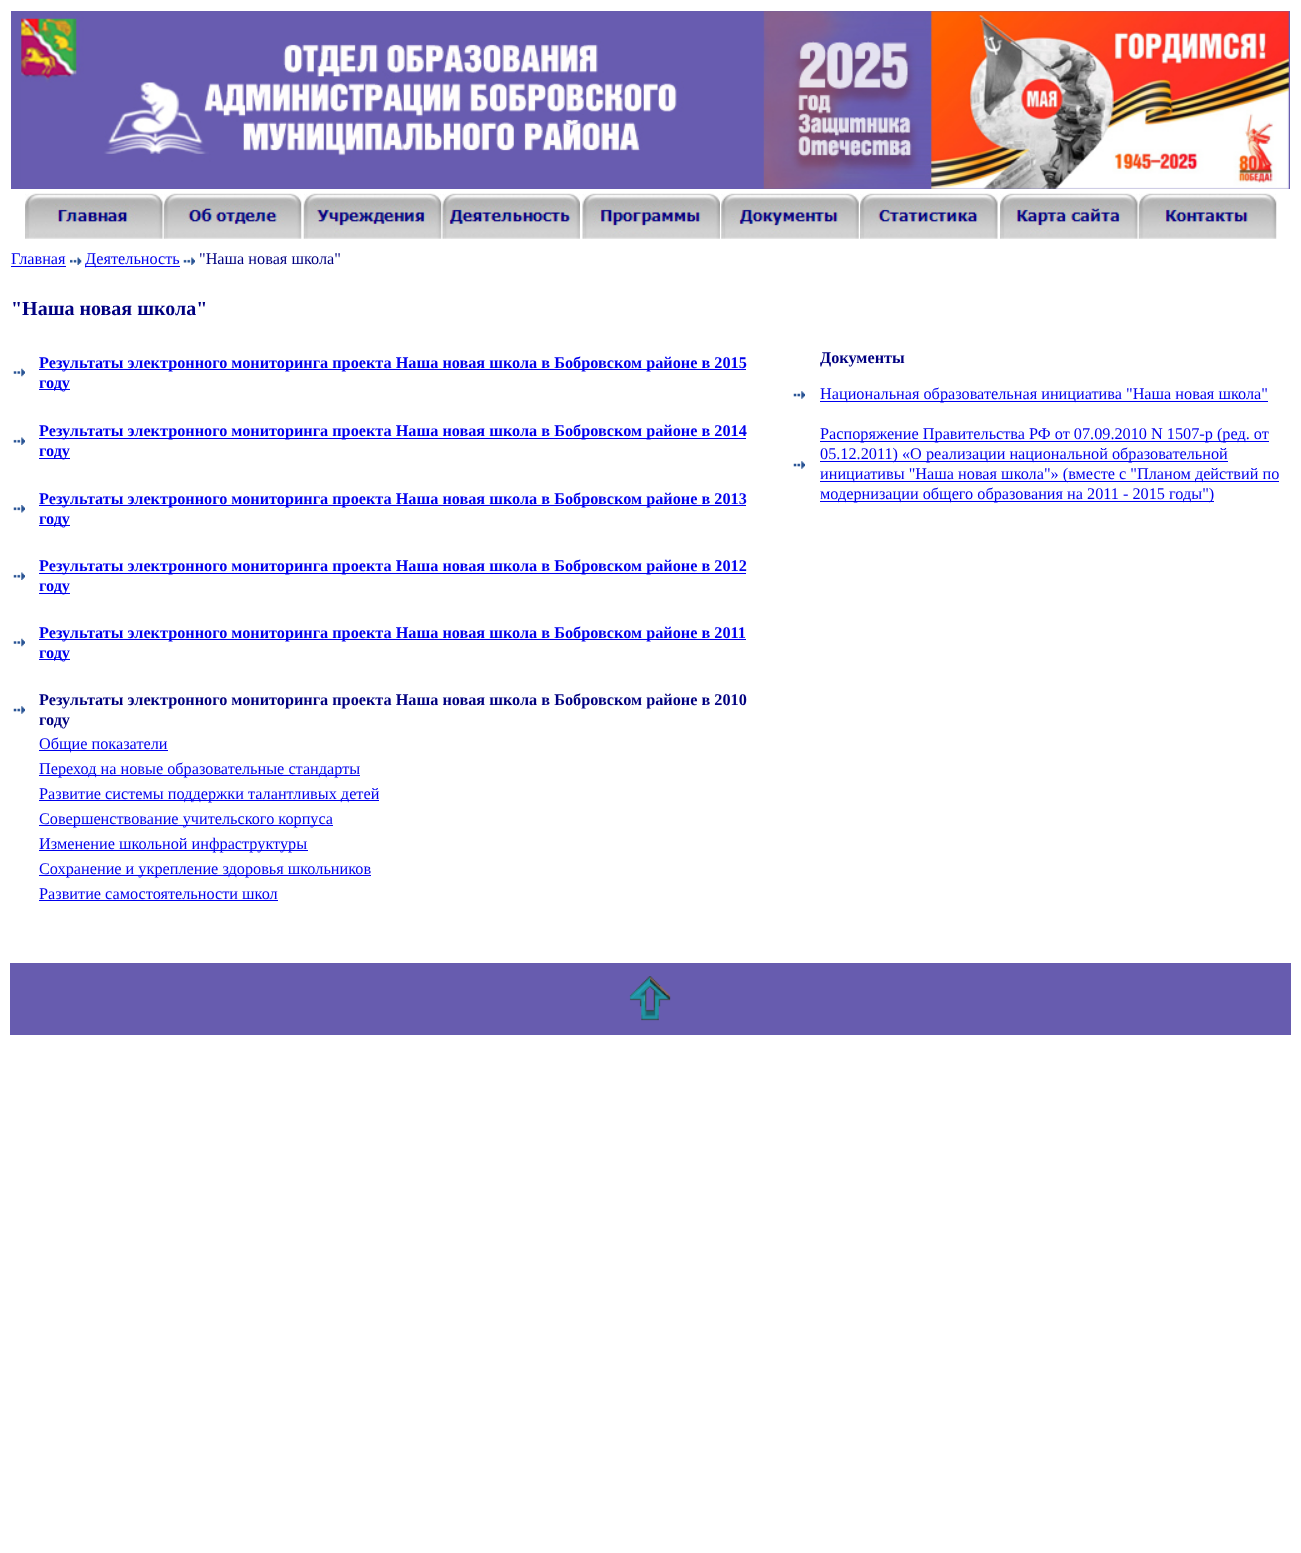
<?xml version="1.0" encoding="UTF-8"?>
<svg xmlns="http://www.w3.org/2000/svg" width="1301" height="1553">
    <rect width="100%" height="100%" fill="#FFFFFF"/>
    <rect x="11" y="11" width="1279" height="178" fill="#675CAF"/>
    <image x="21" y="11" width="1268" height="178" href="img_01.png"/>
    <image x="25" y="193" width="138" height="46" href="img_02.png"/>
    <image x="163" y="193" width="139" height="46" href="img_03.png"/>
    <image x="303" y="193" width="139" height="46" href="img_04.png"/>
    <image x="442" y="193" width="138" height="46" href="img_05.png"/>
    <image x="582" y="193" width="138" height="46" href="img_06.png"/>
    <image x="721" y="193" width="138" height="46" href="img_07.png"/>
    <image x="860" y="193" width="138" height="46" href="img_08.png"/>
    <image x="1000" y="193" width="138" height="46" href="img_09.png"/>
    <image x="1138" y="193" width="139" height="46" href="img_10.png"/>
    <text x="11" y="264" font-family="Liberation Serif" font-size="16.25" fill="#0000EE">Главная</text>
    <rect x="11" y="266" width="55" height="1" fill="#0000EE"/>
    <image x="70" y="257" width="12" height="8" href="img_11.png"/>
    <rect x="85" y="266" width="95" height="1" fill="#0000EE"/>
    <text x="85" y="264" font-family="Liberation Serif" font-size="16.25" fill="#0000EE">Деятельность</text>
    <image x="183" y="257" width="12" height="8" href="img_12.png"/>
    <text x="199" y="264" font-family="Liberation Serif" font-size="16.25" fill="#000080">"Наша новая школа"</text>
    <text x="11" y="315" font-family="Liberation Serif" font-size="20" font-weight="700" fill="#000080">"Наша новая школа"</text>
    <image x="13" y="368" width="12" height="9" href="img_13.png"/>
    <rect x="39" y="369" width="707" height="1" fill="#0000EE"/>
    <text x="39" y="368" font-family="Liberation Serif" font-size="16.25" font-weight="700" fill="#0000EE">Результаты электронного мониторинга проекта Наша новая школа в Бобровском районе в 2015</text>
    <rect x="39" y="389" width="31" height="1" fill="#0000EE"/>
    <text x="39" y="388" font-family="Liberation Serif" font-size="16.25" font-weight="700" fill="#0000EE">году</text>
    <image x="13" y="437" width="12" height="8" href="img_12.png"/>
    <rect x="39" y="438" width="707" height="1" fill="#0000EE"/>
    <text x="39" y="436" font-family="Liberation Serif" font-size="16.25" font-weight="700" fill="#0000EE">Результаты электронного мониторинга проекта Наша новая школа в Бобровском районе в 2014</text>
    <rect x="39" y="458" width="31" height="1" fill="#0000EE"/>
    <text x="39" y="456" font-family="Liberation Serif" font-size="16.25" font-weight="700" fill="#0000EE">году</text>
    <image x="13" y="505" width="12" height="8" href="img_14.png"/>
    <rect x="39" y="505" width="707" height="1" fill="#0000EE"/>
    <text x="39" y="504" font-family="Liberation Serif" font-size="16.25" font-weight="700" fill="#0000EE">Результаты электронного мониторинга проекта Наша новая школа в Бобровском районе в 2013</text>
    <rect x="39" y="525" width="31" height="1" fill="#0000EE"/>
    <text x="39" y="524" font-family="Liberation Serif" font-size="16.25" font-weight="700" fill="#0000EE">году</text>
    <image x="13" y="572" width="12" height="8" href="img_12.png"/>
    <rect x="39" y="573" width="707" height="1" fill="#0000EE"/>
    <text x="39" y="571" font-family="Liberation Serif" font-size="16.25" font-weight="700" fill="#0000EE">Результаты электронного мониторинга проекта Наша новая школа в Бобровском районе в 2012</text>
    <rect x="39" y="593" width="31" height="1" fill="#0000EE"/>
    <text x="39" y="591" font-family="Liberation Serif" font-size="16.25" font-weight="700" fill="#0000EE">году</text>
    <image x="13" y="638" width="12" height="9" href="img_13.png"/>
    <rect x="39" y="639" width="707" height="1" fill="#0000EE"/>
    <text x="39" y="638" font-family="Liberation Serif" font-size="16.25" font-weight="700" fill="#0000EE">Результаты электронного мониторинга проекта Наша новая школа в Бобровском районе в 2011</text>
    <rect x="39" y="659" width="31" height="1" fill="#0000EE"/>
    <text x="39" y="658" font-family="Liberation Serif" font-size="16.25" font-weight="700" fill="#0000EE">году</text>
    <image x="13" y="706" width="12" height="8" href="img_15.png"/>
    <text font-family="Liberation Serif" font-size="16.25" font-weight="700" fill="#000080">
        <tspan x="39" y="705">Результаты электронного мониторинга проекта Наша новая школа в Бобровском районе в 2010</tspan>
        <tspan x="39" y="725">году</tspan>
    </text>
    <rect x="39" y="750" width="129" height="1" fill="#0000EE"/>
    <text x="39" y="749" font-family="Liberation Serif" font-size="16.25" fill="#0000EE">Общие показатели</text>
    <rect x="39" y="775" width="321" height="1" fill="#0000EE"/>
    <text x="39" y="774" font-family="Liberation Serif" font-size="16.25" fill="#0000EE">Переход на новые образовательные стандарты</text>
    <rect x="39" y="800" width="340" height="1" fill="#0000EE"/>
    <text x="39" y="799" font-family="Liberation Serif" font-size="16.25" fill="#0000EE">Развитие системы поддержки талантливых детей</text>
    <rect x="39" y="825" width="294" height="1" fill="#0000EE"/>
    <text x="39" y="824" font-family="Liberation Serif" font-size="16.25" fill="#0000EE">Совершенствование учительского корпуса</text>
    <rect x="39" y="850" width="269" height="1" fill="#0000EE"/>
    <text x="39" y="849" font-family="Liberation Serif" font-size="16.25" fill="#0000EE">Изменение школьной инфраструктуры</text>
    <rect x="39" y="875" width="332" height="1" fill="#0000EE"/>
    <text font-family="Liberation Serif" font-size="16.25" fill="#0000EE">
        <tspan x="39" y="874">Сохранение и укрепление здоровья школьников</tspan>
        <tspan x="39" y="899">Развитие самостоятельности школ</tspan>
    </text>
    <rect x="39" y="900" width="239" height="1" fill="#0000EE"/>
    <text x="820" y="363" font-family="Liberation Serif" font-size="16.25" font-weight="700" fill="#000080">Документы</text>
    <image x="793" y="391" width="12" height="8" href="img_15.png"/>
    <rect x="820" y="401" width="448" height="1" fill="#0000EE"/>
    <text x="820" y="399" font-family="Liberation Serif" font-size="16.25" fill="#0000EE">Национальная образовательная инициатива "Наша новая школа"</text>
    <image x="793" y="461" width="12" height="8" href="img_15.png"/>
    <rect x="820" y="441" width="449" height="1" fill="#0000EE"/>
    <text x="820" y="439" font-family="Liberation Serif" font-size="16.25" fill="#0000EE">Распоряжение Правительства РФ от 07.09.2010 N 1507-р (ред. от</text>
    <rect x="820" y="461" width="408" height="1" fill="#0000EE"/>
    <text x="820" y="459" font-family="Liberation Serif" font-size="16.25" fill="#0000EE">05.12.2011) «О реализации национальной образовательной</text>
    <rect x="820" y="481" width="459" height="1" fill="#0000EE"/>
    <text x="820" y="479" font-family="Liberation Serif" font-size="16.25" fill="#0000EE">инициативы "Наша новая школа"» (вместе с "Планом действий по</text>
    <rect x="820" y="501" width="394" height="1" fill="#0000EE"/>
    <text x="820" y="499" font-family="Liberation Serif" font-size="16.25" fill="#0000EE">модернизации общего образования на 2011 - 2015 годы")</text>
    <rect x="10" y="963" width="1281" height="72" fill="#675CAF"/>
    <image x="629" y="976" width="42" height="45" href="img_16.png"/>
</svg>
